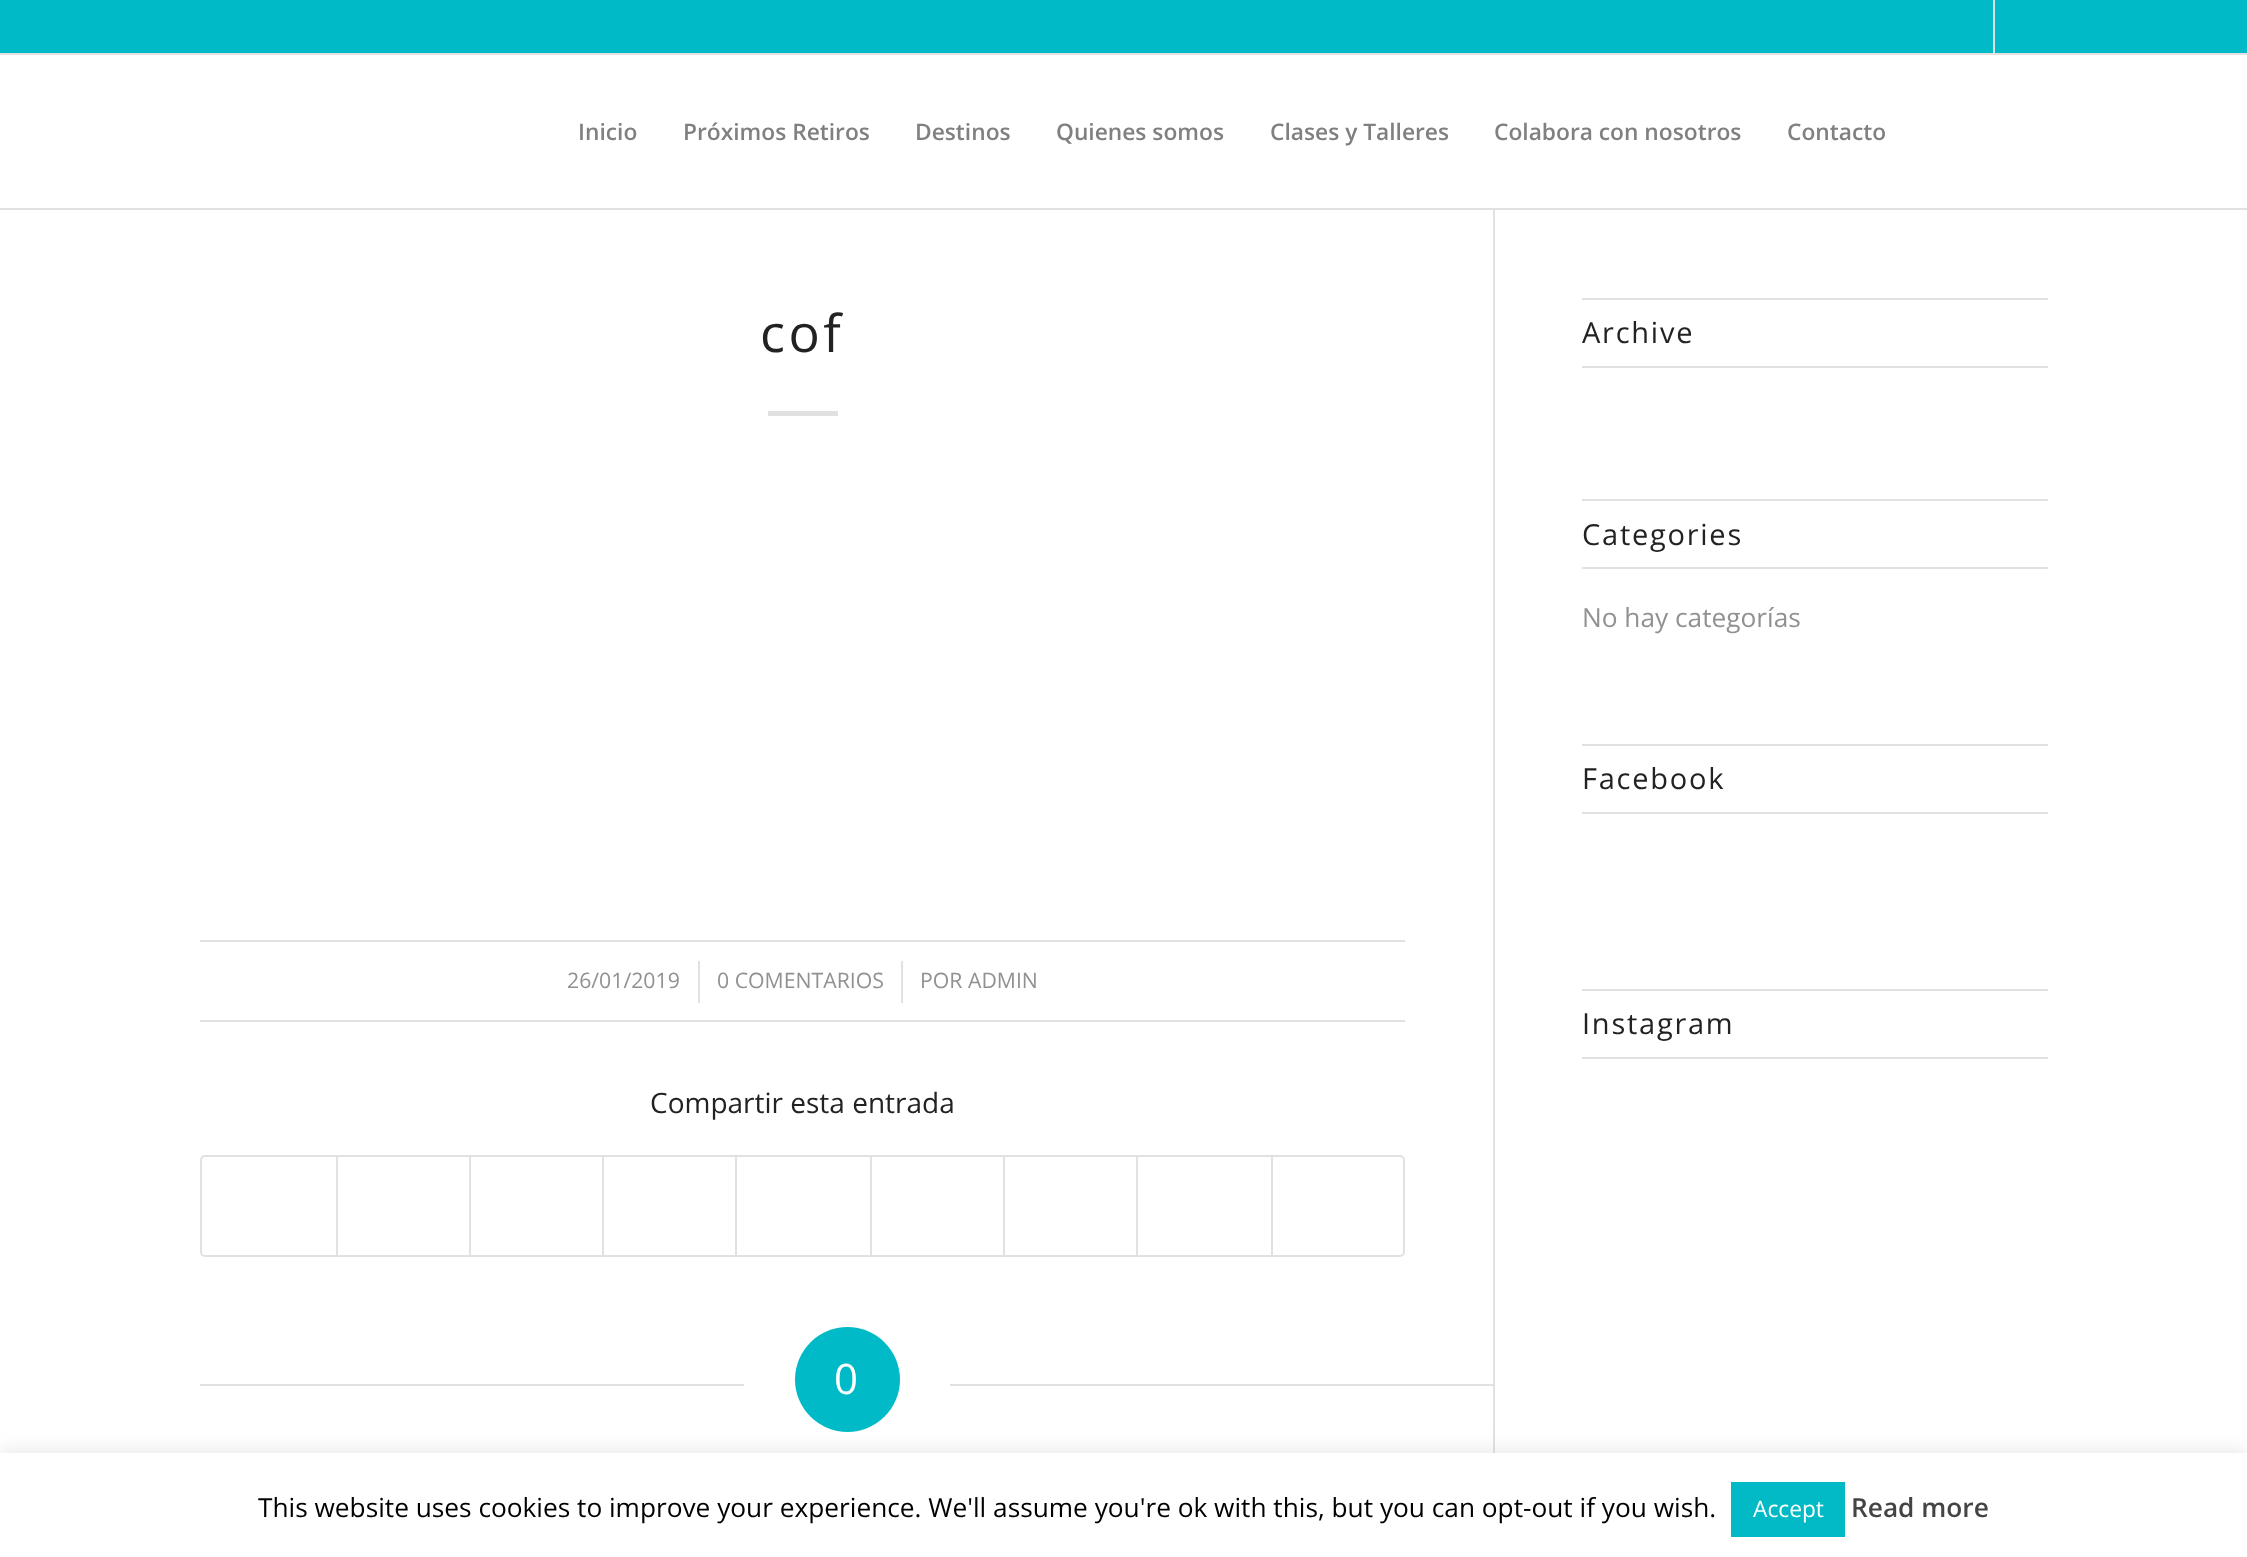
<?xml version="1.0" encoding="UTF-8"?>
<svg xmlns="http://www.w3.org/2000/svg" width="2247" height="1557">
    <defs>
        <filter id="blur1" x="-50%" y="-200%" width="200%" height="500%"><feGaussianBlur stdDeviation="9"/></filter>
    </defs>
    <rect width="100%" height="100%" fill="#FFFFFF"/>
    <rect x="0" y="0" width="2247" height="53" fill="#00BAC7"/>
    <rect x="0" y="53" width="2247" height="2" fill="#E1E1E1"/>
    <rect x="1993" y="0" width="2" height="53" fill="#E1E1E1"/>
    <rect x="0" y="208" width="2247" height="2" fill="#E1E1E1"/>
    <text x="578" y="140" font-family="Open Sans" font-size="22.75" font-weight="600" fill="#808080">Inicio</text>
    <text x="683" y="140" font-family="Open Sans" font-size="22.75" font-weight="600" fill="#808080">Próximos Retiros</text>
    <text x="915" y="140" font-family="Open Sans" font-size="22.75" font-weight="600" fill="#808080">Destinos</text>
    <text x="1056" y="140" font-family="Open Sans" font-size="22.75" font-weight="600" fill="#808080">Quienes somos</text>
    <text x="1270" y="140" font-family="Open Sans" font-size="22.75" font-weight="600" fill="#808080">Clases y Talleres</text>
    <text x="1494" y="140" font-family="Open Sans" font-size="22.75" font-weight="600" fill="#808080">Colabora con nosotros</text>
    <text x="1787" y="140" font-family="Open Sans" font-size="22.75" font-weight="600" fill="#808080">Contacto</text>
    <rect x="1493" y="210" width="2" height="1243" fill="#E1E1E1"/>
    <text x="760" y="352" font-family="Open Sans" font-size="52" letter-spacing="3.5" fill="#222222">cof</text>
    <rect x="768" y="411" width="70" height="5" fill="#E1E1E1"/>
    <rect x="200" y="940" width="1205" height="2" fill="#E1E1E1"/>
    <rect x="200" y="1020" width="1205" height="2" fill="#E1E1E1"/>
    <text x="567" y="988" font-family="Open Sans" font-size="21.25" fill="#919191">26/01/2019</text>
    <rect x="698" y="961" width="2" height="42" fill="#E1E1E1"/>
    <text x="717" y="988" font-family="Open Sans" font-size="21.25" fill="#919191">0 COMENTARIOS</text>
    <rect x="901" y="961" width="2" height="42" fill="#E1E1E1"/>
    <text x="920" y="988" font-family="Open Sans" font-size="21.25" fill="#919191">POR ADMIN</text>
    <text x="650" y="1113" font-family="Open Sans" font-size="28" fill="#222222">Compartir esta entrada</text>
    <rect x="201" y="1156" width="1203" height="100" rx="4" fill="none" stroke="#E1E1E1" stroke-width="2"/>
    <rect x="336" y="1157" width="2" height="98" fill="#E1E1E1"/>
    <rect x="469" y="1157" width="2" height="98" fill="#E1E1E1"/>
    <rect x="602" y="1157" width="2" height="98" fill="#E1E1E1"/>
    <rect x="735" y="1157" width="2" height="98" fill="#E1E1E1"/>
    <rect x="870" y="1157" width="2" height="98" fill="#E1E1E1"/>
    <rect x="1003" y="1157" width="2" height="98" fill="#E1E1E1"/>
    <rect x="1136" y="1157" width="2" height="98" fill="#E1E1E1"/>
    <rect x="1271" y="1157" width="2" height="98" fill="#E1E1E1"/>
    <rect x="200" y="1384" width="544" height="2" fill="#E1E1E1"/>
    <circle cx="847.5" cy="1379.5" r="52.5" fill="#00BAC7"/>
    <text x="834" y="1394" font-family="Open Sans" font-size="42" fill="#FFFFFF">0</text>
    <rect x="950" y="1384" width="543" height="2" fill="#E1E1E1"/>
    <rect x="1582" y="298" width="466" height="2" fill="#E1E1E1"/>
    <rect x="1582" y="366" width="466" height="2" fill="#E1E1E1"/>
    <text x="1582" y="343" font-family="Open Sans" font-size="29" letter-spacing="1.75" fill="#222222">Archive</text>
    <rect x="1582" y="499" width="466" height="2" fill="#E1E1E1"/>
    <rect x="1582" y="567" width="466" height="2" fill="#E1E1E1"/>
    <text x="1582" y="545" font-family="Open Sans" font-size="29" letter-spacing="1.75" fill="#222222">Categories</text>
    <text x="1582" y="627" font-family="Open Sans" font-size="26.25" fill="#919191">No hay categorías</text>
    <rect x="1582" y="744" width="466" height="2" fill="#E1E1E1"/>
    <rect x="1582" y="812" width="466" height="2" fill="#E1E1E1"/>
    <text x="1582" y="789" font-family="Open Sans" font-size="29" letter-spacing="1.75" fill="#222222">Facebook</text>
    <rect x="1582" y="989" width="466" height="2" fill="#E1E1E1"/>
    <rect x="1582" y="1057" width="466" height="2" fill="#E1E1E1"/>
    <text x="1582" y="1034" font-family="Open Sans" font-size="29" letter-spacing="1.75" fill="#222222">Instagram</text>
    <rect x="0" y="1451" width="2247" height="105" fill="#ACABAB" fill-opacity="0.3" filter="url(#blur1)"/>
    <rect x="0" y="1453" width="2247" height="104" fill="#FFFFFF"/>
    <text x="258" y="1517" font-family="Open Sans" font-size="26.25" fill="#000000">This website uses cookies to improve your experience. We'll assume you're ok with this, but you can opt-out if you wish.</text>
    <rect x="1731" y="1482" width="114" height="55" fill="#02BAC6"/>
    <text x="1753" y="1517" font-family="Open Sans" font-size="22.75" fill="#FFFFFF">Accept</text>
    <text x="1851" y="1517" font-family="Open Sans" font-size="26.25" font-weight="600" fill="#444444">Read more</text>
</svg>
